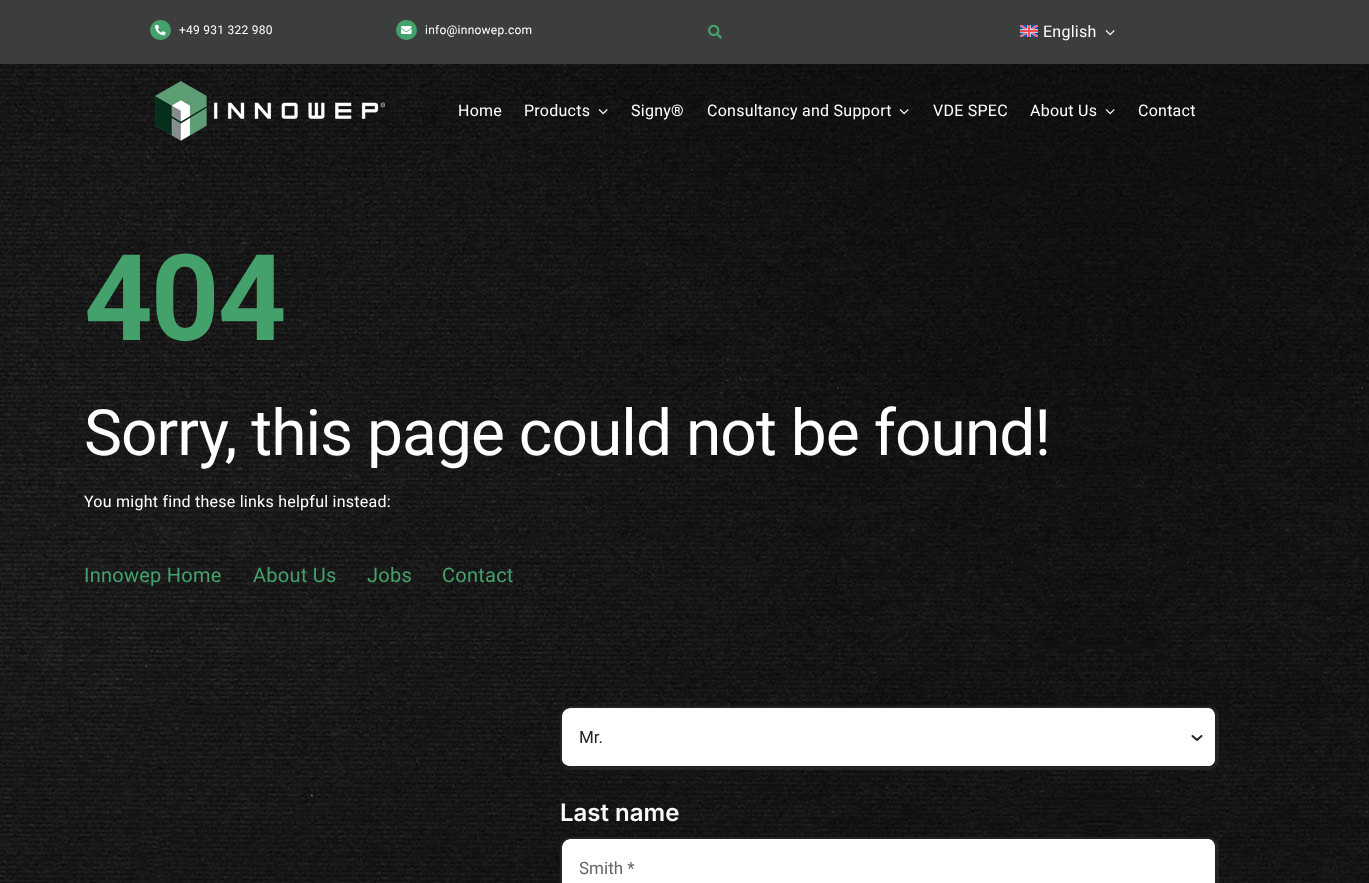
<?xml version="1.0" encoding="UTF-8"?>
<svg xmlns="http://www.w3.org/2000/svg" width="1369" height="883">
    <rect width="100%" height="100%" fill="#FFFFFF"/>
    <image x="0" y="64" width="1369" height="819" href="img_01.png"/>
    <rect x="0" y="0" width="1369" height="64" fill="#3B3E3D"/>
    <rect x="150" y="20" width="21" height="20" rx="10" fill="#45A16C"/>
    <image x="155" y="24" width="11" height="12" href="img_02.png"/>
    <text x="179" y="34" font-family="Roboto" font-size="12" letter-spacing="0.25" fill="#FFFFFF">+49 931 322 980</text>
    <rect x="396" y="20" width="21" height="20" rx="10" fill="#45A16C"/>
    <image x="401" y="26" width="11" height="8" href="img_03.png"/>
    <text x="425" y="34" font-family="Roboto" font-size="12" letter-spacing="0.25" fill="#FFFFFF">info@innowep.com</text>
    <image x="708" y="24" width="14" height="15" href="img_04.png"/>
    <image x="1020" y="25" width="18" height="12" href="img_05.png"/>
    <text x="1043" y="37" font-family="Roboto" font-size="16" letter-spacing="0.25" fill="#FFFFFF">English</text>
    <image x="1105" y="30" width="10" height="6" href="img_06.png"/>
    <image x="155" y="81" width="230" height="60" href="img_07.png"/>
    <text x="458" y="116" font-family="Roboto" font-size="16" letter-spacing="0.25" fill="#FFFFFF">Home</text>
    <text x="524" y="116" font-family="Roboto" font-size="16" letter-spacing="0.25" fill="#FFFFFF">Products</text>
    <image x="598" y="109" width="10" height="6" href="img_08.png"/>
    <text x="631" y="116" font-family="Roboto" font-size="16" letter-spacing="0.25" fill="#FFFFFF">Signy®</text>
    <text x="707" y="116" font-family="Roboto" font-size="16" letter-spacing="0.25" fill="#FFFFFF">Consultancy and Support</text>
    <image x="899" y="109" width="10" height="6" href="img_09.png"/>
    <text x="933" y="116" font-family="Roboto" font-size="16" letter-spacing="0.25" fill="#FFFFFF">VDE SPEC</text>
    <text x="1030" y="116" font-family="Roboto" font-size="16" letter-spacing="0.25" fill="#FFFFFF">About Us</text>
    <image x="1105" y="109" width="10" height="6" href="img_10.png"/>
    <text x="1138" y="116" font-family="Roboto" font-size="16" letter-spacing="0.25" fill="#FFFFFF">Contact</text>
    <text x="84" y="340" font-family="Roboto" font-size="120" font-weight="700" letter-spacing="-2" fill="#45A16C">404</text>
    <text x="84" y="455" font-family="Roboto" font-size="64" letter-spacing="-0.95" fill="#FFFFFF">Sorry, this page could not be found!</text>
    <text x="84" y="507" font-family="Roboto" font-size="16" letter-spacing="0.25" fill="#FFFFFF">You might find these links helpful instead:</text>
    <text x="84" y="582" font-family="Roboto" font-size="20" letter-spacing="0.25" fill="#45A16C">Innowep Home</text>
    <text x="253" y="582" font-family="Roboto" font-size="20" letter-spacing="0.25" fill="#45A16C">About Us</text>
    <text x="367" y="582" font-family="Roboto" font-size="20" letter-spacing="0.25" fill="#45A16C">Jobs</text>
    <text x="442" y="582" font-family="Roboto" font-size="20" letter-spacing="0.25" fill="#45A16C">Contact</text>
    <path d="M 570 708 H 1209 C 1212 708 1215 712 1215 716 V 760 C 1215 763 1212 766 1209 766 H 570 C 566 766 562 763 562 760 V 716 C 562 712 566 708 570 708 Z" fill="#FFFFFF"/>
    <rect x="561" y="707" width="657" height="62" rx="9" fill="none" stroke="#212326" stroke-width="2"/>
    <rect x="1215" y="711" width="2" height="54" fill="#212326"/>
    <rect x="565" y="766" width="649" height="2" fill="#212326"/>
    <text x="579" y="743" font-family="Roboto" font-size="17" fill="#212326">Mr.</text>
    <path d="M 1192.5 736 L 1197 740 L 1201.5 736" fill="none" stroke="#212326" stroke-width="2" stroke-linecap="round" stroke-linejoin="round"/>
    <text x="560" y="821" font-family="Inter" font-size="24" font-weight="600" fill="#F9F9FB">Last name</text>
    <path d="M 570 839 H 1209 C 1212 839 1215 843 1215 847 V 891 C 1215 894 1212 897 1209 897 H 570 C 566 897 562 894 562 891 V 847 C 562 843 566 839 570 839 Z" fill="#FFFFFF"/>
    <rect x="561" y="838" width="657" height="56" rx="9" fill="none" stroke="#212326" stroke-width="2"/>
    <rect x="1215" y="842" width="2" height="41" fill="#212326"/>
    <text x="579" y="874" font-family="Roboto" font-size="17" fill="#646567">Smith *</text>
</svg>
